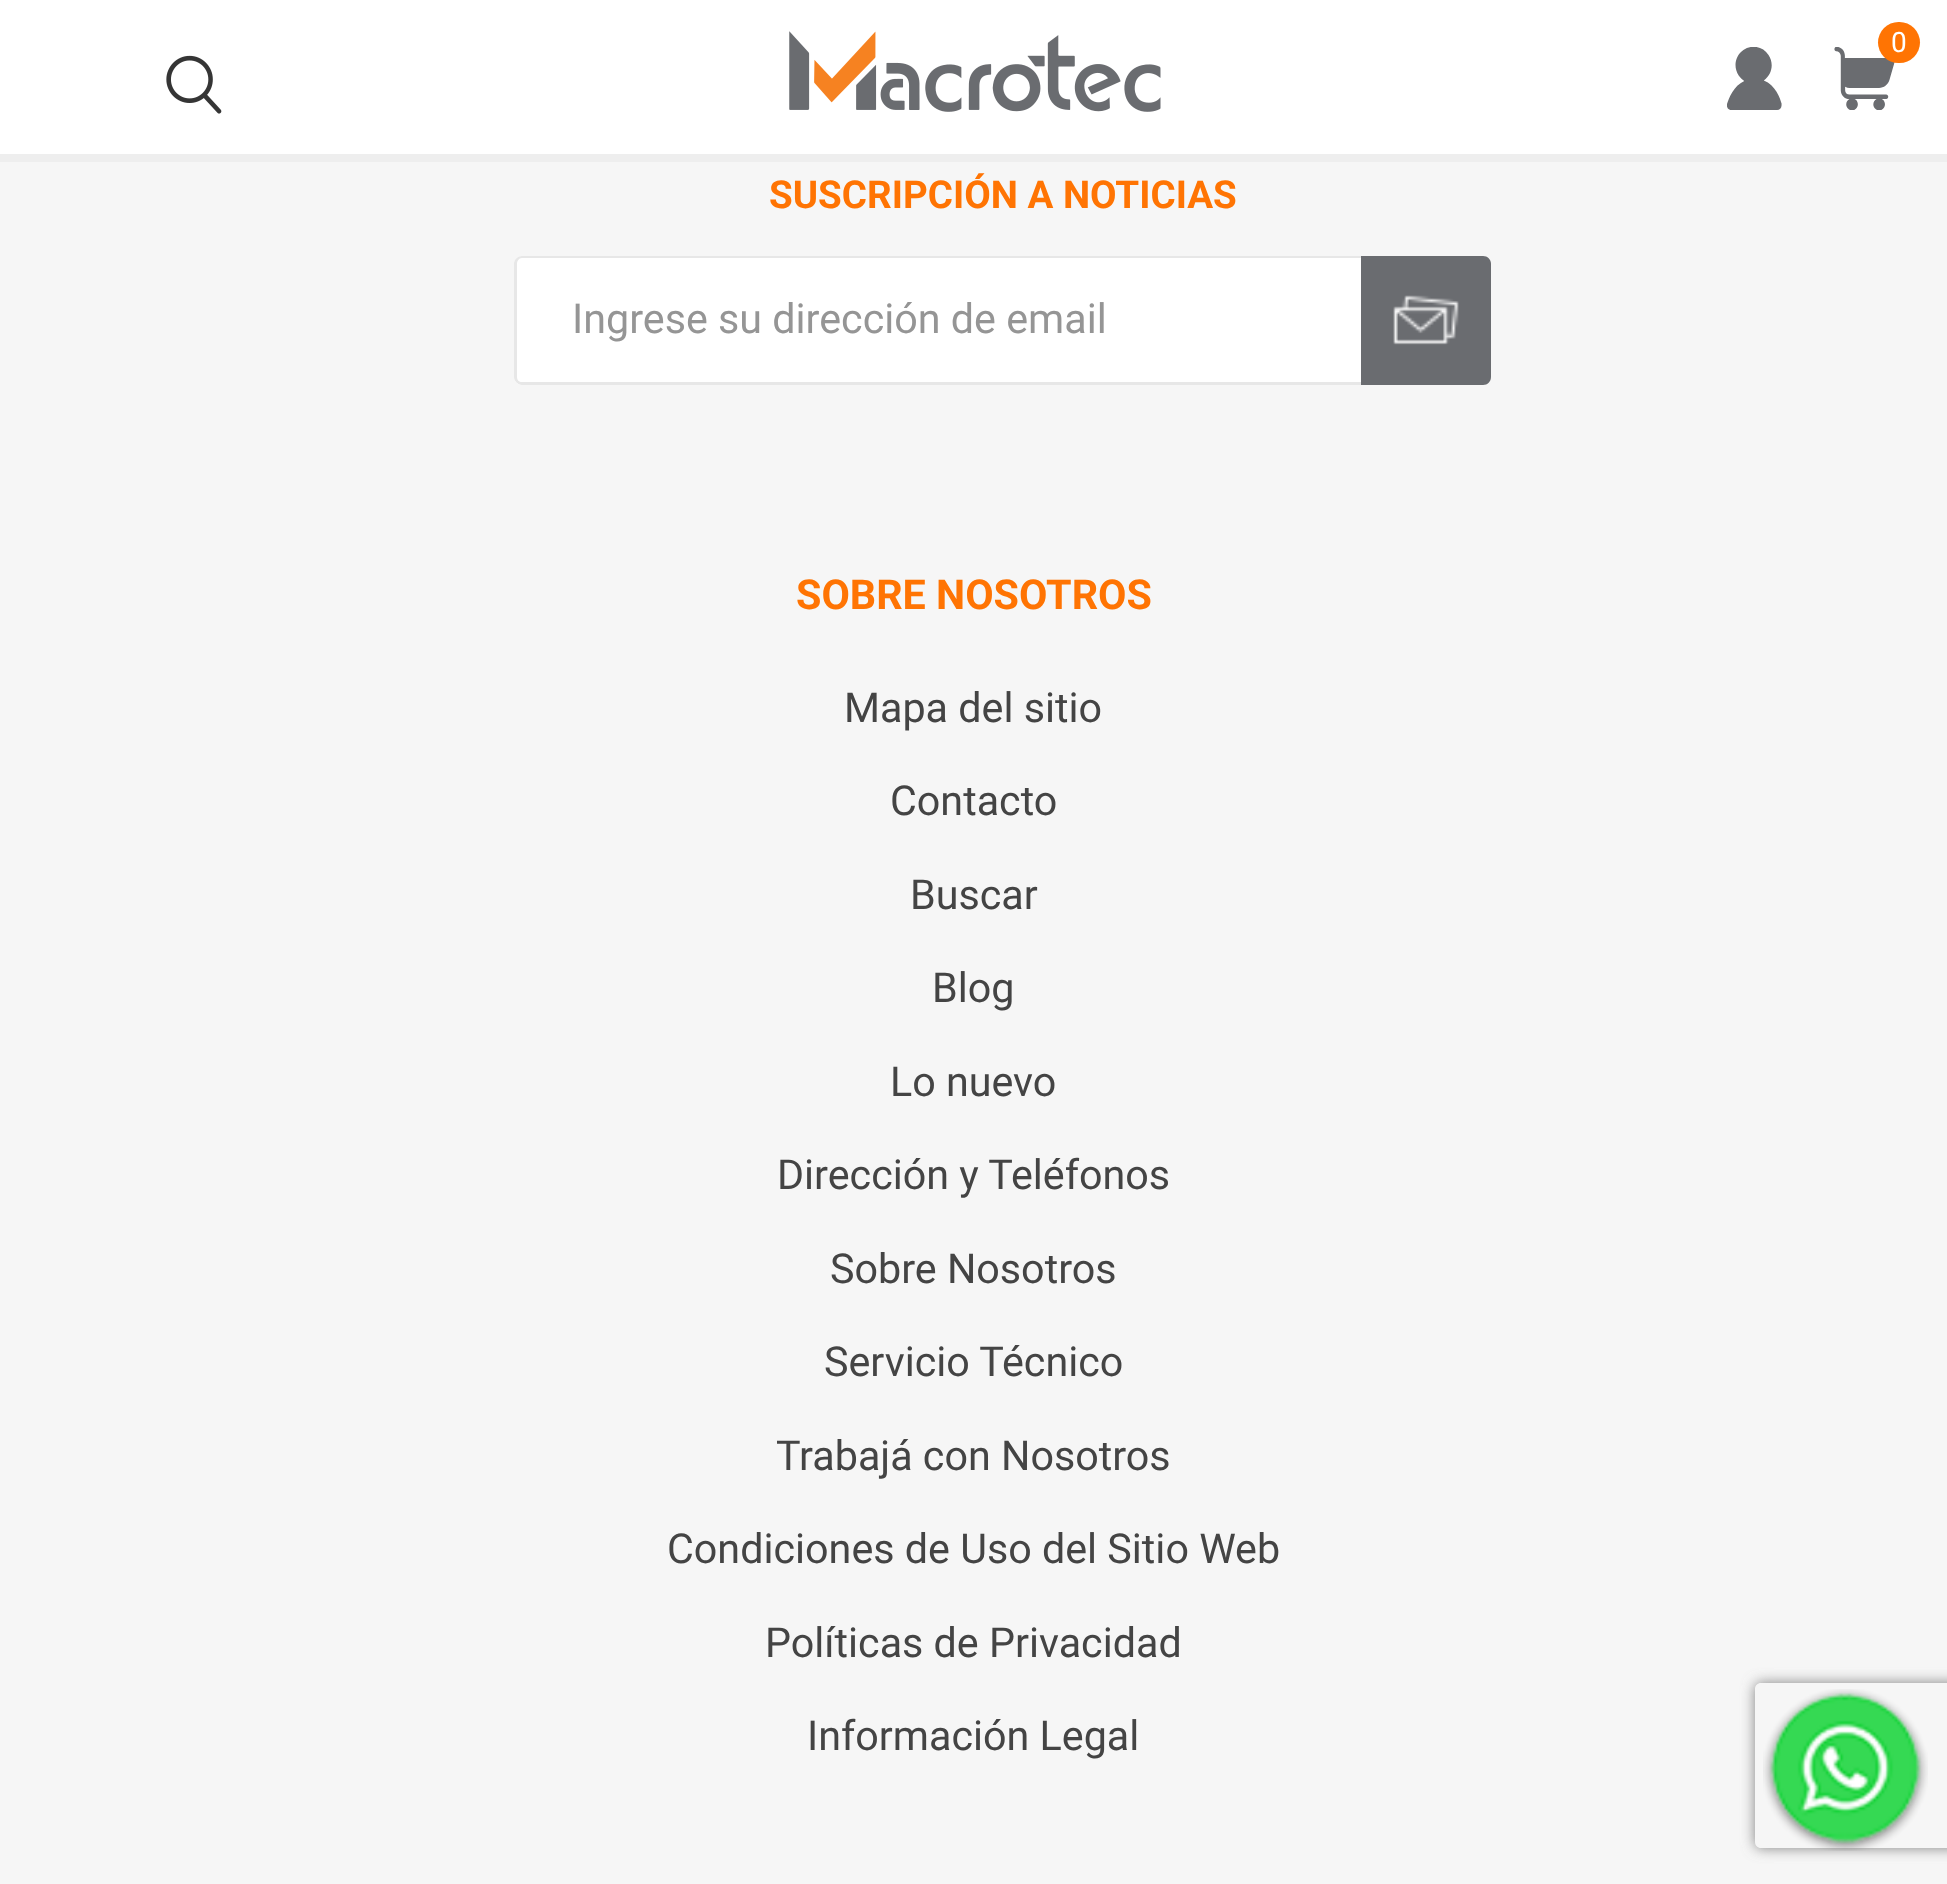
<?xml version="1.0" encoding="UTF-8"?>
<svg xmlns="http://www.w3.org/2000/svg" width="1947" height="1884">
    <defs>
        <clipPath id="clip1"><path d="M 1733 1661 H 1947 V 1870 H 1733 Z M 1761 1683 H 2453 C 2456.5 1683 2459 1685.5 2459 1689 V 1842 C 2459 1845.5 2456.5 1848 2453 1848 H 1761 C 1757.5 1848 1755 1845.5 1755 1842 V 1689 C 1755 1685.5 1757.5 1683 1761 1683 Z" clip-rule="evenodd"/></clipPath>
        <filter id="blur1" x="-50%" y="-200%" width="200%" height="500%"><feGaussianBlur stdDeviation="7"/></filter>
    </defs>
    <rect width="100%" height="100%" fill="#F6F6F6"/>
    <rect x="0" y="0" width="1947" height="154" fill="#FFFFFF"/>
    <rect x="0" y="154" width="1947" height="8" fill="#EEEEEE"/>
    <image x="789" y="31" width="372" height="81" href="img_01.png"/>
    <image x="1834" y="47" width="61" height="63" href="img_02.png"/>
    <rect x="1878" y="22" width="42" height="41" rx="20.5" fill="#FF7403"/>
    <text x="1891" y="52" font-family="Roboto" font-size="28" fill="#FFFFFF">0</text>
    <image x="166" y="55" width="56" height="59" href="img_03.png"/>
    <image x="1727" y="47" width="55" height="63" href="img_04.png"/>
    <text x="769" y="208" font-family="Roboto" font-size="38.5" font-weight="700" fill="#FF7403">SUSCRIPCIÓN A NOTICIAS</text>
    <path d="M 522 256 H 1361 V 385 H 522 C 517.5 385 514 381.5 514 377 V 264 C 514 259.5 517.5 256 522 256 Z" fill="#FFFFFF"/>
    <path d="M 522 256 H 1361 V 385 H 522 C 518 385 514 381 514 377 V 264 C 514 259 518 256 522 256 Z M 522 258 H 1361 V 382 H 522 C 519 382 517 380 517 377 V 264 C 517 261 519 258 522 258 Z" fill="#E7E7E7" fill-rule="evenodd"/>
    <text x="572" y="333" font-family="Roboto" font-size="41.25" fill="#959595">Ingrese su dirección de email</text>
    <path d="M 1361 256 H 1483 C 1487.5 256 1491 259.5 1491 264 V 377 C 1491 381.5 1487.5 385 1483 385 H 1361 Z" fill="#6A6C70"/>
    <image x="1393" y="295" width="66" height="50" href="img_05.png"/>
    <text x="796" y="609" font-family="Roboto" font-size="41.25" font-weight="700" fill="#FF7403">SOBRE NOSOTROS</text>
    <text x="844" y="722" font-family="Roboto" font-size="41.25" fill="#444444">Mapa del sitio</text>
    <text x="890" y="815" font-family="Roboto" font-size="41.25" fill="#444444">Contacto</text>
    <text x="910" y="909" font-family="Roboto" font-size="41.25" fill="#444444">Buscar</text>
    <text x="932" y="1002" font-family="Roboto" font-size="41.25" fill="#444444">Blog</text>
    <text x="890" y="1096" font-family="Roboto" font-size="41.25" fill="#444444">Lo nuevo</text>
    <text x="777" y="1189" font-family="Roboto" font-size="41.25" fill="#444444">Dirección y Teléfonos</text>
    <text x="830" y="1283" font-family="Roboto" font-size="41.25" fill="#444444">Sobre Nosotros</text>
    <text x="824" y="1376" font-family="Roboto" font-size="41.25" fill="#444444">Servicio Técnico</text>
    <text x="776" y="1470" font-family="Roboto" font-size="41.25" fill="#444444">Trabajá con Nosotros</text>
    <text x="667" y="1563" font-family="Roboto" font-size="41.25" fill="#444444">Condiciones de Uso del Sitio Web</text>
    <text x="765" y="1657" font-family="Roboto" font-size="41.25" fill="#444444">Políticas de Privacidad</text>
    <text x="807" y="1750" font-family="Roboto" font-size="41.25" fill="#444444">Información Legal</text>
    <image x="1763" y="1689" width="165" height="162" href="img_06.png"/>
    <g clip-path="url(#clip1)">
        <rect x="1755" y="1683" width="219" height="165" rx="6" fill="#808080" filter="url(#blur1)"/>
    </g>
</svg>
